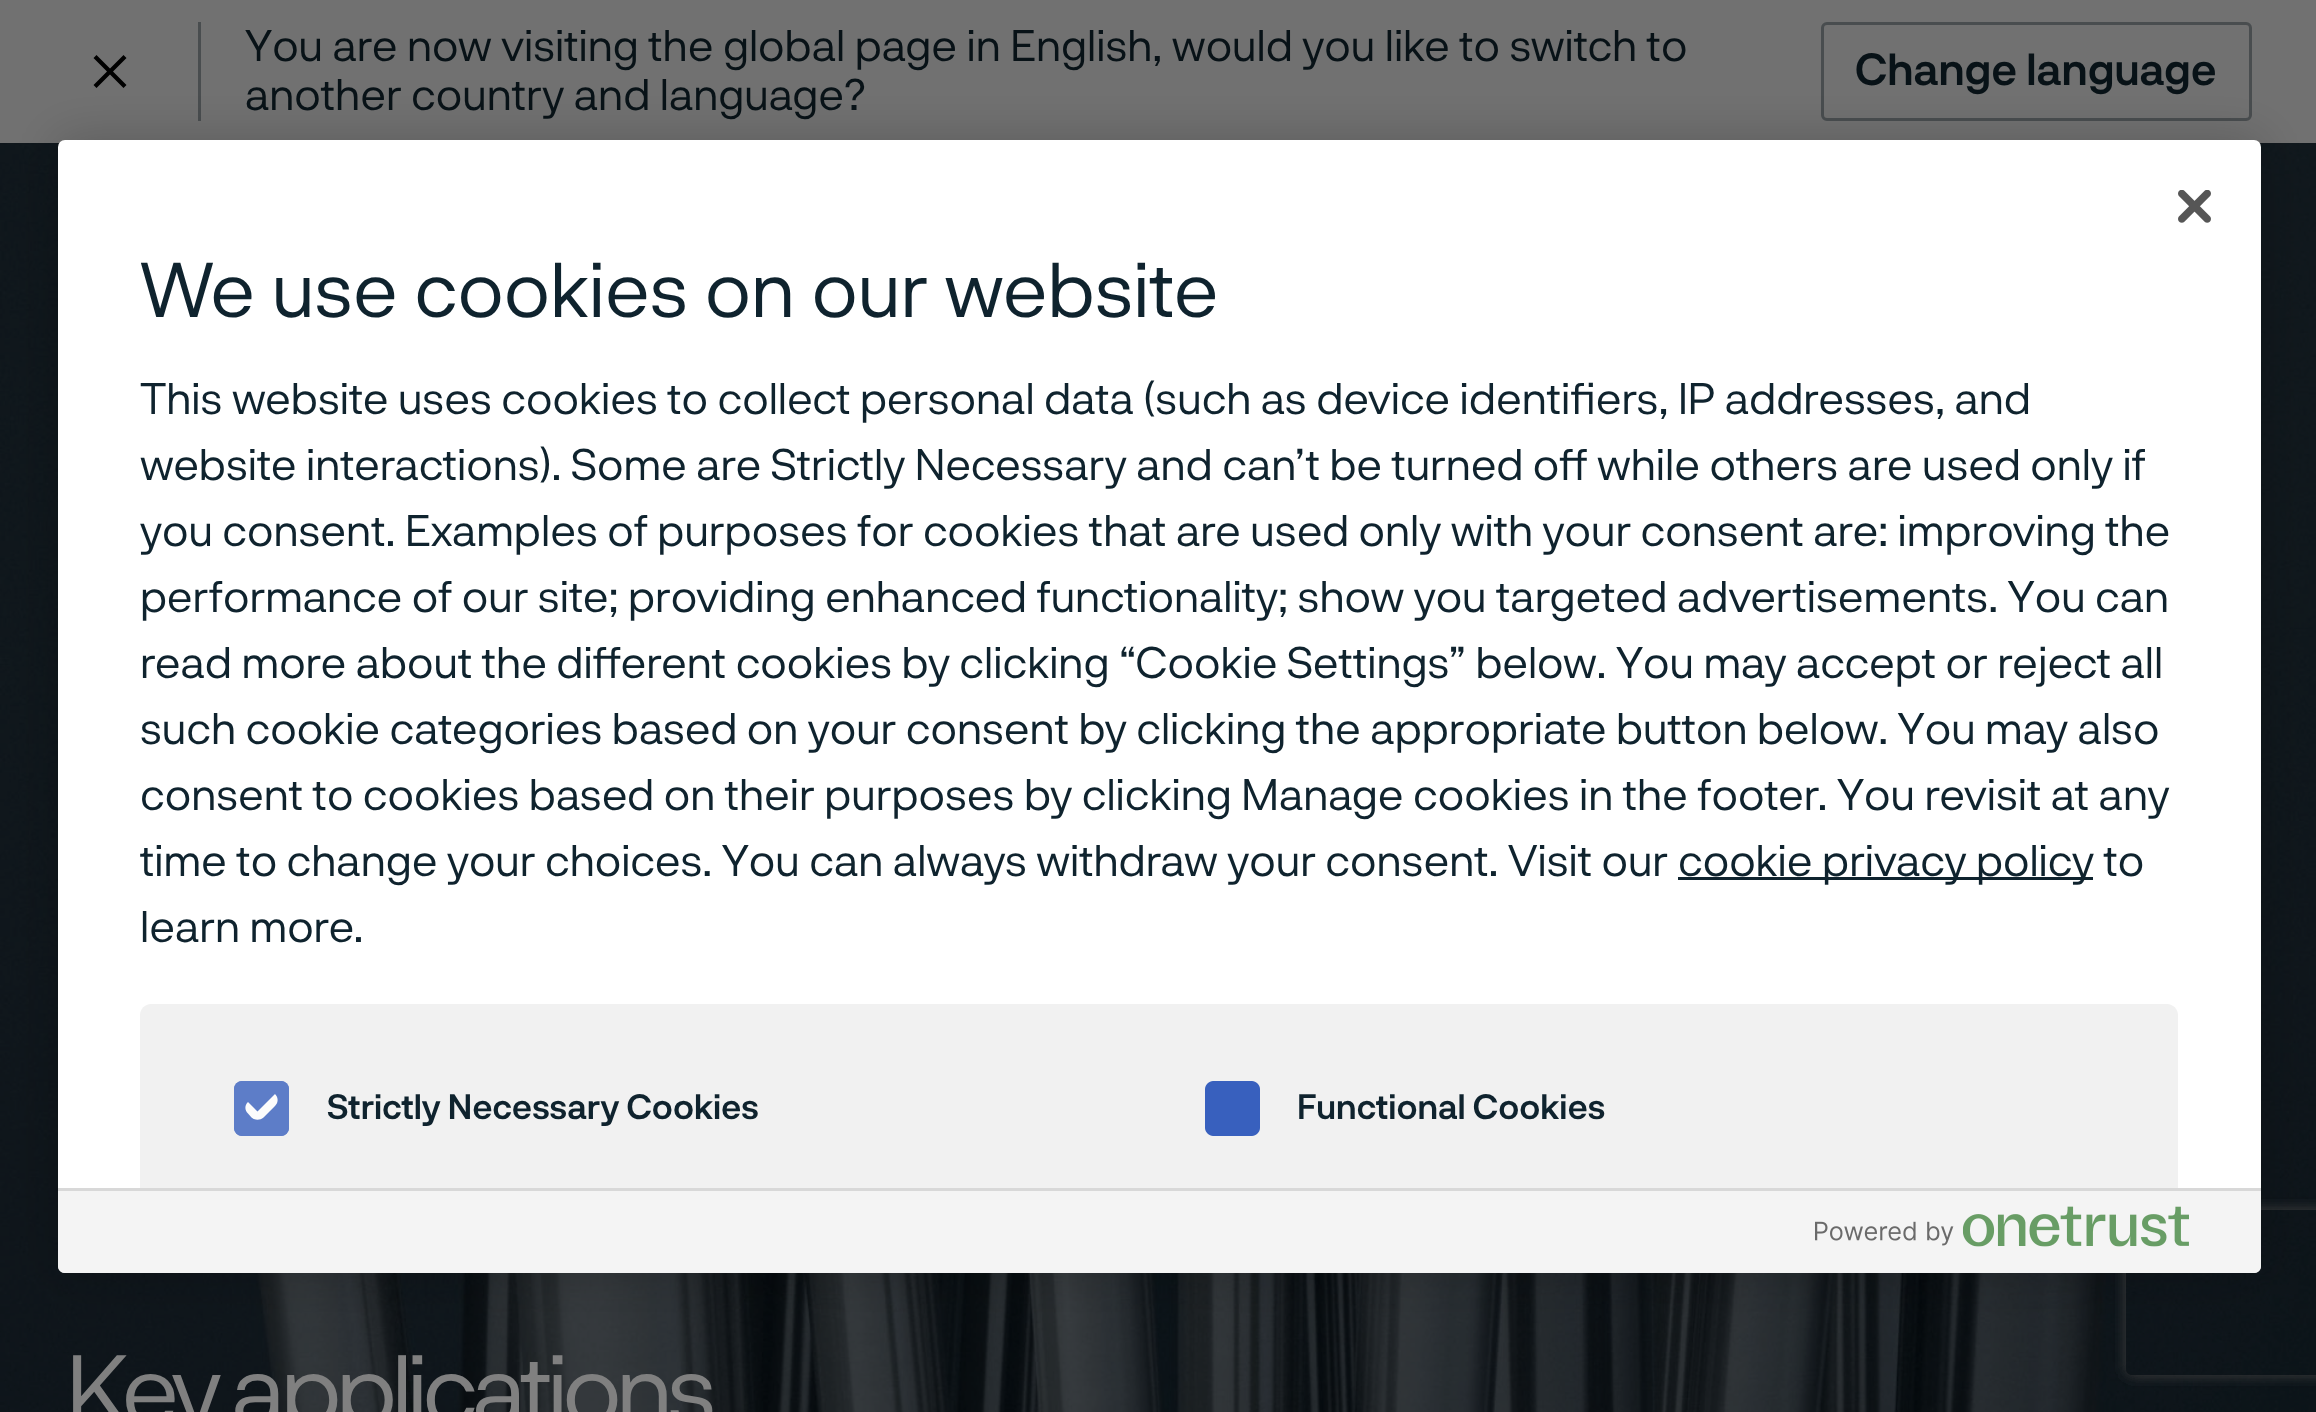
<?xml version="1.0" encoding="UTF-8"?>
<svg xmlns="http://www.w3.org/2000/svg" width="2316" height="1412">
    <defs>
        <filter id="blur1" x="-50%" y="-200%" width="200%" height="500%"><feGaussianBlur stdDeviation="25"/></filter>
        <clipPath id="clip1"><path d="M 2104 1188 H 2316 V 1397 H 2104 Z M 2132 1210 H 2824 C 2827.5 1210 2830 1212.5 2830 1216 V 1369 C 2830 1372.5 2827.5 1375 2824 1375 H 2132 C 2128.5 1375 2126 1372.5 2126 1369 V 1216 C 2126 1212.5 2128.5 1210 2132 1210 Z" clip-rule="evenodd"/></clipPath>
        <filter id="blur2" x="-50%" y="-200%" width="200%" height="500%"><feGaussianBlur stdDeviation="7"/></filter>
    </defs>
    <rect width="100%" height="100%" fill="#FFFFFF"/>
    <rect x="0" y="0" width="2316" height="143" fill="#717171"/>
    <path d="M 96.5 88 L 110 74.5 L 123.5 88 L 126.5 85 L 113 71.5 L 126.5 58 L 123.5 55 L 110 68.5 L 96.5 55 L 93.5 58 L 107 71.5 L 93.5 85 Z" fill="#000000"/>
    <rect x="198" y="22" width="3" height="99" fill="#494D4F"/>
    <text font-family="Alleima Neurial" font-size="44" fill="#081217">
        <tspan x="245" y="61">You are now visiting the global page in English, would you like to switch to</tspan>
        <tspan x="245" y="110">another country and language?</tspan>
    </text>
    <rect x="1822.5" y="23.5" width="428" height="96" rx="4.5" fill="none" stroke="#494D4F" stroke-width="3"/>
    <text x="1855" y="85" font-family="Alleima Neurial" font-size="44" font-weight="700" fill="#081217">Change language</text>
    <image x="0" y="143" width="2316" height="1269" href="img_01.png"/>
    <text x="66" y="1425" font-family="Alleima Neurial" font-size="99" letter-spacing="-5.5" fill="#808080">Key applications</text>
    <rect x="58" y="140" width="2203" height="1133" rx="7" fill="#000000" fill-opacity="0.2" filter="url(#blur1)"/>
    <g clip-path="url(#clip1)">
        <rect x="2126" y="1210" width="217" height="165" rx="6" fill="#404040" filter="url(#blur2)"/>
    </g>
    <rect x="58" y="140" width="2203" height="1133" rx="7" fill="#FFFFFF"/>
    <image x="2178" y="190" width="33" height="33" href="img_02.png"/>
    <text x="140" y="317" font-family="Alleima Neurial" font-size="77" fill="#0F232E">We use cookies on our website</text>
    <text font-family="Alleima Neurial" font-size="44" fill="#0F232E">
        <tspan x="140" y="414">This website uses cookies to collect personal data (such as device identifiers, IP addresses, and</tspan>
        <tspan x="140" y="480">website interactions). Some are Strictly Necessary and can’t be turned off while others are used only if</tspan>
        <tspan x="140" y="546">you consent. Examples of purposes for cookies that are used only with your consent are: improving the</tspan>
        <tspan x="140" y="612">performance of our site; providing enhanced functionality; show you targeted advertisements. You can</tspan>
        <tspan x="140" y="678">read more about the different cookies by clicking “Cookie Settings” below. You may accept or reject all</tspan>
        <tspan x="140" y="744">such cookie categories based on your consent by clicking the appropriate button below. You may also</tspan>
        <tspan x="140" y="810">consent to cookies based on their purposes by clicking Manage cookies in the footer. You revisit at any</tspan>
        <tspan x="140" y="876">time to change your choices. You can always withdraw your consent. Visit our</tspan>
    </text>
    <rect x="1678" y="877" width="415" height="3" fill="#0F232E"/>
    <text x="1678" y="876" font-family="Alleima Neurial" font-size="44" fill="#0F232E">cookie privacy policy to</text>
    <text x="140" y="942" font-family="Alleima Neurial" font-size="44" fill="#0F232E">learn more.</text>
    <path d="M 151 1004 H 2167 C 2173 1004 2178 1009 2178 1015 V 1273 H 140 V 1015 C 140 1009 145 1004 151 1004 Z" fill="#F1F1F1"/>
    <rect x="234" y="1081" width="55" height="55" rx="8" fill="#5D7DC8"/>
    <path d="M 242 1081 H 281 C 285 1081 289 1085 289 1089 V 1128 C 289 1132 285 1136 281 1136 H 242 C 238 1136 234 1132 234 1128 V 1089 C 234 1085 238 1081 242 1081 Z" fill="#5D7DC8"/>
    <path d="M 248 1102 L 259.5 1090 C 262.5 1087 268 1087 271 1090 L 275 1094 C 278.5 1097.5 278.5 1102.5 275 1106 L 263.5 1117.5 C 260 1120.5 255 1120.5 251.5 1117.5 L 248 1113.5 C 244.5 1110.5 244.5 1105 248 1102 Z M 248 1102 L 259.5 1090 C 262.5 1087 268 1087 271 1090 L 275 1094 L 257.5 1111.5 Z" fill="#FCFCFC" fill-rule="evenodd"/>
    <text x="327" y="1119" font-family="Alleima Neurial" font-size="34.6" font-weight="700" fill="#0F232E">Strictly Necessary Cookies</text>
    <path d="M 1213 1081 H 1252 C 1256 1081 1260 1085 1260 1089 V 1128 C 1260 1132 1256 1136 1252 1136 H 1213 C 1209 1136 1205 1132 1205 1128 V 1089 C 1205 1085 1209 1081 1213 1081 Z" fill="#3860BE"/>
    <text x="1297" y="1119" font-family="Alleima Neurial" font-size="34.6" font-weight="700" fill="#0F232E">Functional Cookies</text>
    <path d="M 58 1188 H 2261 V 1266 C 2261 1270 2258 1273 2254 1273 H 65 C 61 1273 58 1270 58 1266 Z" fill="#F4F4F4"/>
    <rect x="58" y="1188" width="2203" height="3" fill="#D8D8D8"/>
    <image x="1815" y="1206" width="374" height="41" href="img_03.png"/>
</svg>
